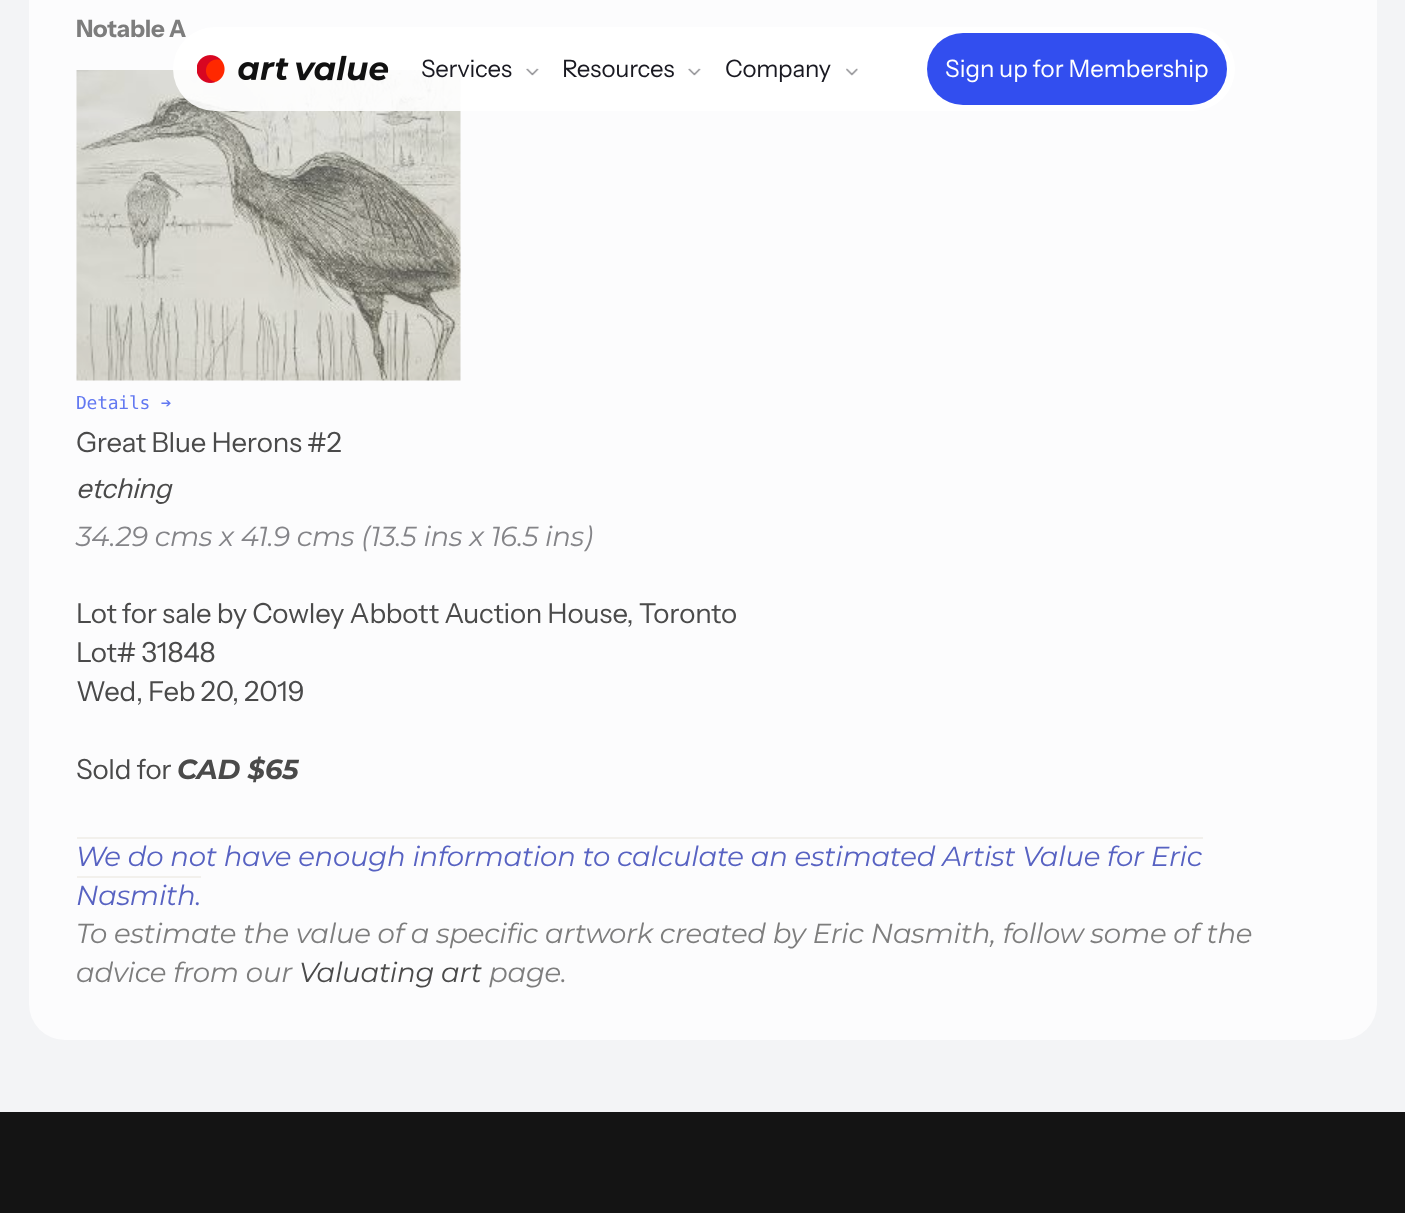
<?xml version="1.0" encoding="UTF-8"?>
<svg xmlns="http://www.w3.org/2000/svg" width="1405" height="1213">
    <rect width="100%" height="100%" fill="#F3F4F6"/>
    <rect x="29" y="-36" width="1348" height="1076" rx="36" fill="#FCFCFD"/>
    <text x="76" y="37" font-family="Instrument Sans" font-size="24" font-weight="700" letter-spacing="-0.25" fill="#7D7D7D">Notable A</text>
    <image x="76" y="70" width="385" height="311" href="img_01.png"/>
    <text x="76" y="409" font-family="DejaVu Sans Mono" font-size="18" letter-spacing="-0.25" fill="#6278F1">Details ➔</text>
    <text x="76" y="452" font-family="Instrument Sans" font-size="27.6" letter-spacing="-0.25" fill="#4A4A4A">Great Blue Herons #2</text>
    <text x="76" y="498" font-family="Instrument Sans" font-size="27.6" font-style="italic" letter-spacing="-0.25" fill="#4A4A4A">etching</text>
    <text x="76" y="546" font-family="Montserrat" font-size="27.6" font-style="italic" letter-spacing="-0.25" fill="#848488">34.29 cms x 41.9 cms (13.5 ins x 16.5 ins)</text>
    <text font-family="Instrument Sans" font-size="27.6" letter-spacing="-0.25" fill="#4A4A4A">
        <tspan x="76" y="623">Lot for sale by Cowley Abbott Auction House, Toronto</tspan>
        <tspan x="76" y="662">Lot# 31848</tspan>
        <tspan x="76" y="701">Wed, Feb 20, 2019</tspan>
    </text>
    <text x="76" y="779" font-family="Instrument Sans" font-size="27.6" letter-spacing="-0.25" fill="#4A4A4A">Sold for</text>
    <text x="177" y="779" font-family="Montserrat" font-size="27.6" font-weight="700" font-style="italic" letter-spacing="-0.25" fill="#4A4A4A">CAD $65</text>
    <text x="76" y="866" font-family="Montserrat" font-size="27.6" font-style="italic" letter-spacing="-0.25" fill="#5762C2">We do not have enough information to calculate an estimated Artist Value for Eric</text>
    <rect x="77" y="837" width="1126" height="2" fill="#F2F0EC"/>
    <text x="76" y="905" font-family="Montserrat" font-size="27.6" font-style="italic" letter-spacing="-0.25" fill="#5762C2">Nasmith.</text>
    <rect x="77" y="876" width="124" height="2" fill="#F2F0EC"/>
    <text font-family="Montserrat" font-size="27.6" font-style="italic" letter-spacing="-0.25" fill="#7D7D7D">
        <tspan x="76" y="943">To estimate the value of a specific artwork created by Eric Nasmith, follow some of the</tspan>
        <tspan x="76" y="982">advice from our</tspan>
    </text>
    <text x="299" y="982" font-family="Montserrat" font-size="27.6" font-style="italic" letter-spacing="-0.25" fill="#4A4A4A">Valuating art</text>
    <text x="489" y="982" font-family="Montserrat" font-size="27.6" font-style="italic" letter-spacing="-0.25" fill="#7D7D7D">page.</text>
    <rect x="173" y="27" width="1062" height="84" rx="42" fill="#FFFFFF" fill-opacity="0.9"/>
    <image x="197" y="55" width="192" height="28" href="img_02.png"/>
    <text x="421" y="77" font-family="Instrument Sans" font-size="24" letter-spacing="-0.25" fill="#191921">Services</text>
    <image x="526" y="68" width="13" height="8" href="img_03.png"/>
    <text x="562" y="77" font-family="Instrument Sans" font-size="24" letter-spacing="-0.25" fill="#191921">Resources</text>
    <image x="688" y="68" width="13" height="8" href="img_04.png"/>
    <text x="725" y="77" font-family="Instrument Sans" font-size="24" letter-spacing="-0.25" fill="#191921">Company</text>
    <image x="846" y="68" width="12" height="8" href="img_05.png"/>
    <rect x="927" y="33" width="300" height="72" rx="36" fill="#324EEF"/>
    <text x="945" y="77" font-family="Instrument Sans" font-size="24" fill="#FFFFFF">Sign up for Membership</text>
    <rect x="0" y="1112" width="1405" height="101" fill="#141414"/>
</svg>
